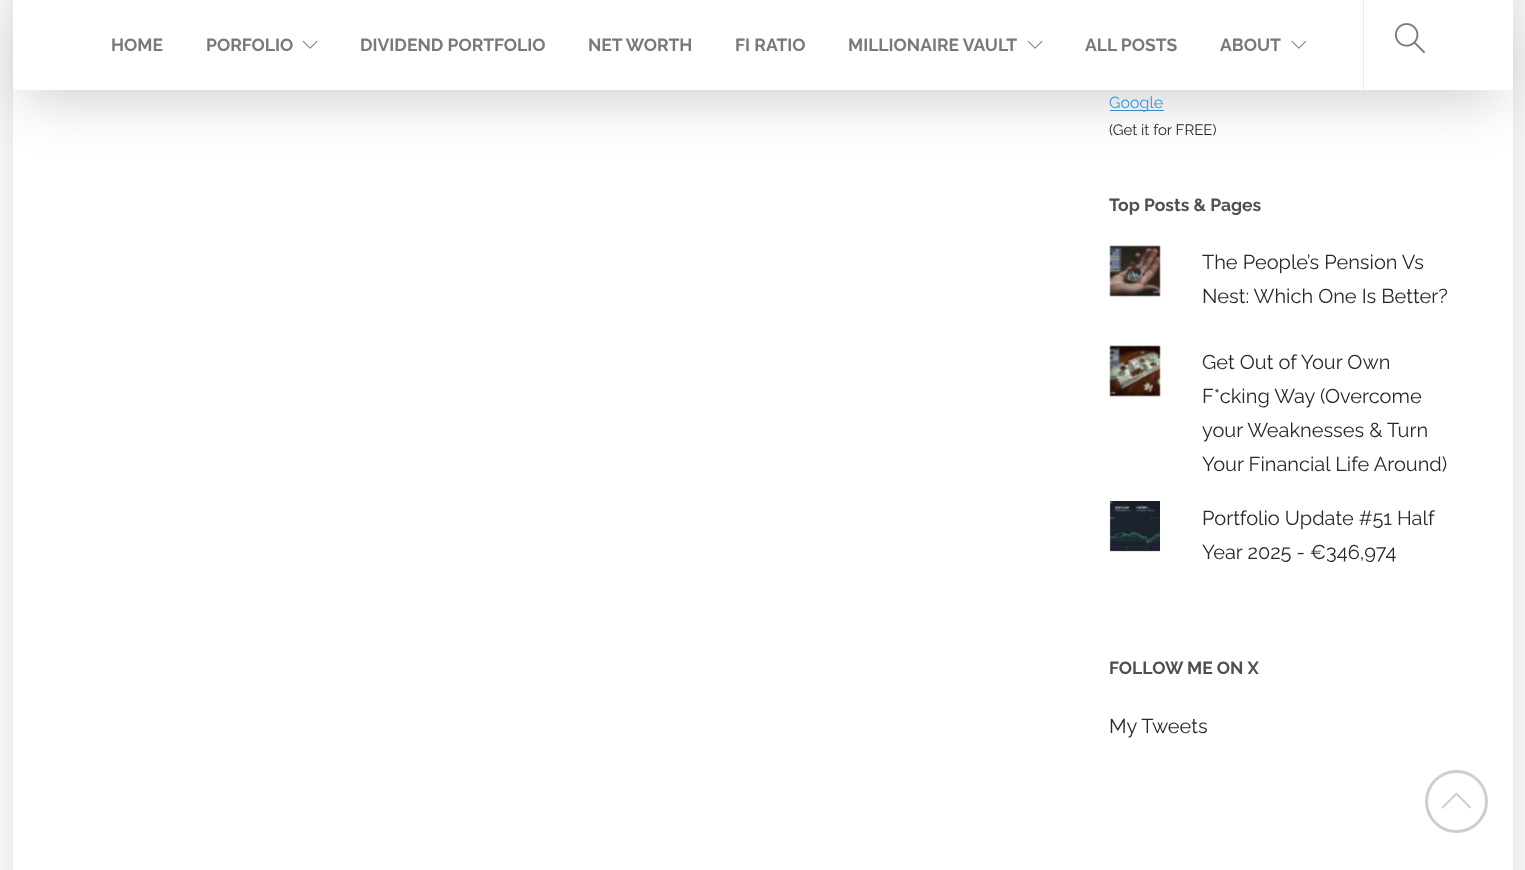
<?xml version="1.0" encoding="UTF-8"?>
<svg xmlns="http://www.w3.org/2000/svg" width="1525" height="870">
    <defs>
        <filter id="blur1" x="-50%" y="-200%" width="200%" height="500%"><feGaussianBlur stdDeviation="19"/></filter>
        <filter id="blur2" x="-50%" y="-200%" width="200%" height="500%"><feGaussianBlur stdDeviation="28"/></filter>
    </defs>
    <rect width="100%" height="100%" fill="#FAFAFA"/>
    <rect x="13" y="-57" width="1500" height="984" fill="#000000" fill-opacity="0.1" filter="url(#blur1)"/>
    <rect x="13" y="0" width="1500" height="870" fill="#FFFFFF"/>
    <rect x="1110" y="110" width="54" height="1" fill="#3498DB"/>
    <rect x="24" y="30" width="1477" height="68" fill="#000000" fill-opacity="0.2" filter="url(#blur2)"/>
    <rect x="13" y="0" width="1500" height="90" rx="4" fill="#FFFFFF"/>
    <text x="111" y="51" font-family="Raleway" font-size="17.5" font-weight="700" fill="#797979">HOME</text>
    <text x="206" y="51" font-family="Raleway" font-size="17.5" font-weight="700" fill="#797979">PORFOLIO</text>
    <image x="302" y="40" width="16" height="9" href="img_01.png"/>
    <text x="360" y="51" font-family="Raleway" font-size="17.5" font-weight="700" fill="#797979">DIVIDEND PORTFOLIO</text>
    <text x="588" y="51" font-family="Raleway" font-size="17.5" font-weight="700" fill="#797979">NET WORTH</text>
    <text x="735" y="51" font-family="Raleway" font-size="17.5" font-weight="700" fill="#797979">FI RATIO</text>
    <text x="848" y="51" font-family="Raleway" font-size="17.5" font-weight="700" fill="#797979">MILLIONAIRE VAULT</text>
    <image x="1027" y="40" width="16" height="9" href="img_01.png"/>
    <text x="1085" y="51" font-family="Raleway" font-size="17.5" font-weight="700" fill="#797979">ALL POSTS</text>
    <text x="1220" y="51" font-family="Raleway" font-size="17.5" font-weight="700" fill="#797979">ABOUT</text>
    <image x="1291" y="40" width="16" height="9" href="img_02.png"/>
    <rect x="1363" y="0" width="1" height="90" fill="#EBEBEB"/>
    <image x="1394" y="23" width="31" height="30" href="img_03.png"/>
    <text x="1109" y="108" font-family="Raleway" font-size="16" fill="#3498DB">Google</text>
    <text x="1109" y="135" font-family="Raleway" font-size="15" fill="#2A2727">(Get it for FREE)</text>
    <text x="1109" y="211" font-family="Raleway" font-size="17.5" font-weight="700" fill="#4F4F4F">Top Posts &amp; Pages</text>
    <image x="1109" y="245" width="52" height="52" href="img_04.png"/>
    <text font-family="Raleway" font-size="20" fill="#2A2727">
        <tspan x="1202" y="269">The People’s Pension Vs</tspan>
        <tspan x="1202" y="303">Nest: Which One Is Better?</tspan>
    </text>
    <image x="1109" y="345" width="52" height="52" href="img_05.png"/>
    <text font-family="Raleway" font-size="20" fill="#2A2727">
        <tspan x="1202" y="369">Get Out of Your Own</tspan>
        <tspan x="1202" y="403">F*cking Way (Overcome</tspan>
        <tspan x="1202" y="437">your Weaknesses &amp; Turn</tspan>
        <tspan x="1202" y="471">Your Financial Life Around)</tspan>
    </text>
    <image x="1109" y="501" width="51" height="51" href="img_06.png"/>
    <text font-family="Raleway" font-size="20" fill="#2A2727">
        <tspan x="1202" y="525">Portfolio Update #51 Half</tspan>
        <tspan x="1202" y="559">Year 2025 - €346,974</tspan>
    </text>
    <text x="1109" y="674" font-family="Raleway" font-size="17.5" font-weight="700" fill="#4F4F4F">FOLLOW ME ON X</text>
    <text x="1109" y="733" font-family="Raleway" font-size="20" fill="#2A2727">My Tweets</text>
    <circle cx="1456.5" cy="801.5" r="30" fill="none" stroke="#CECECE" stroke-width="3"/>
    <image x="1441" y="792" width="31" height="17" href="img_07.png"/>
</svg>
